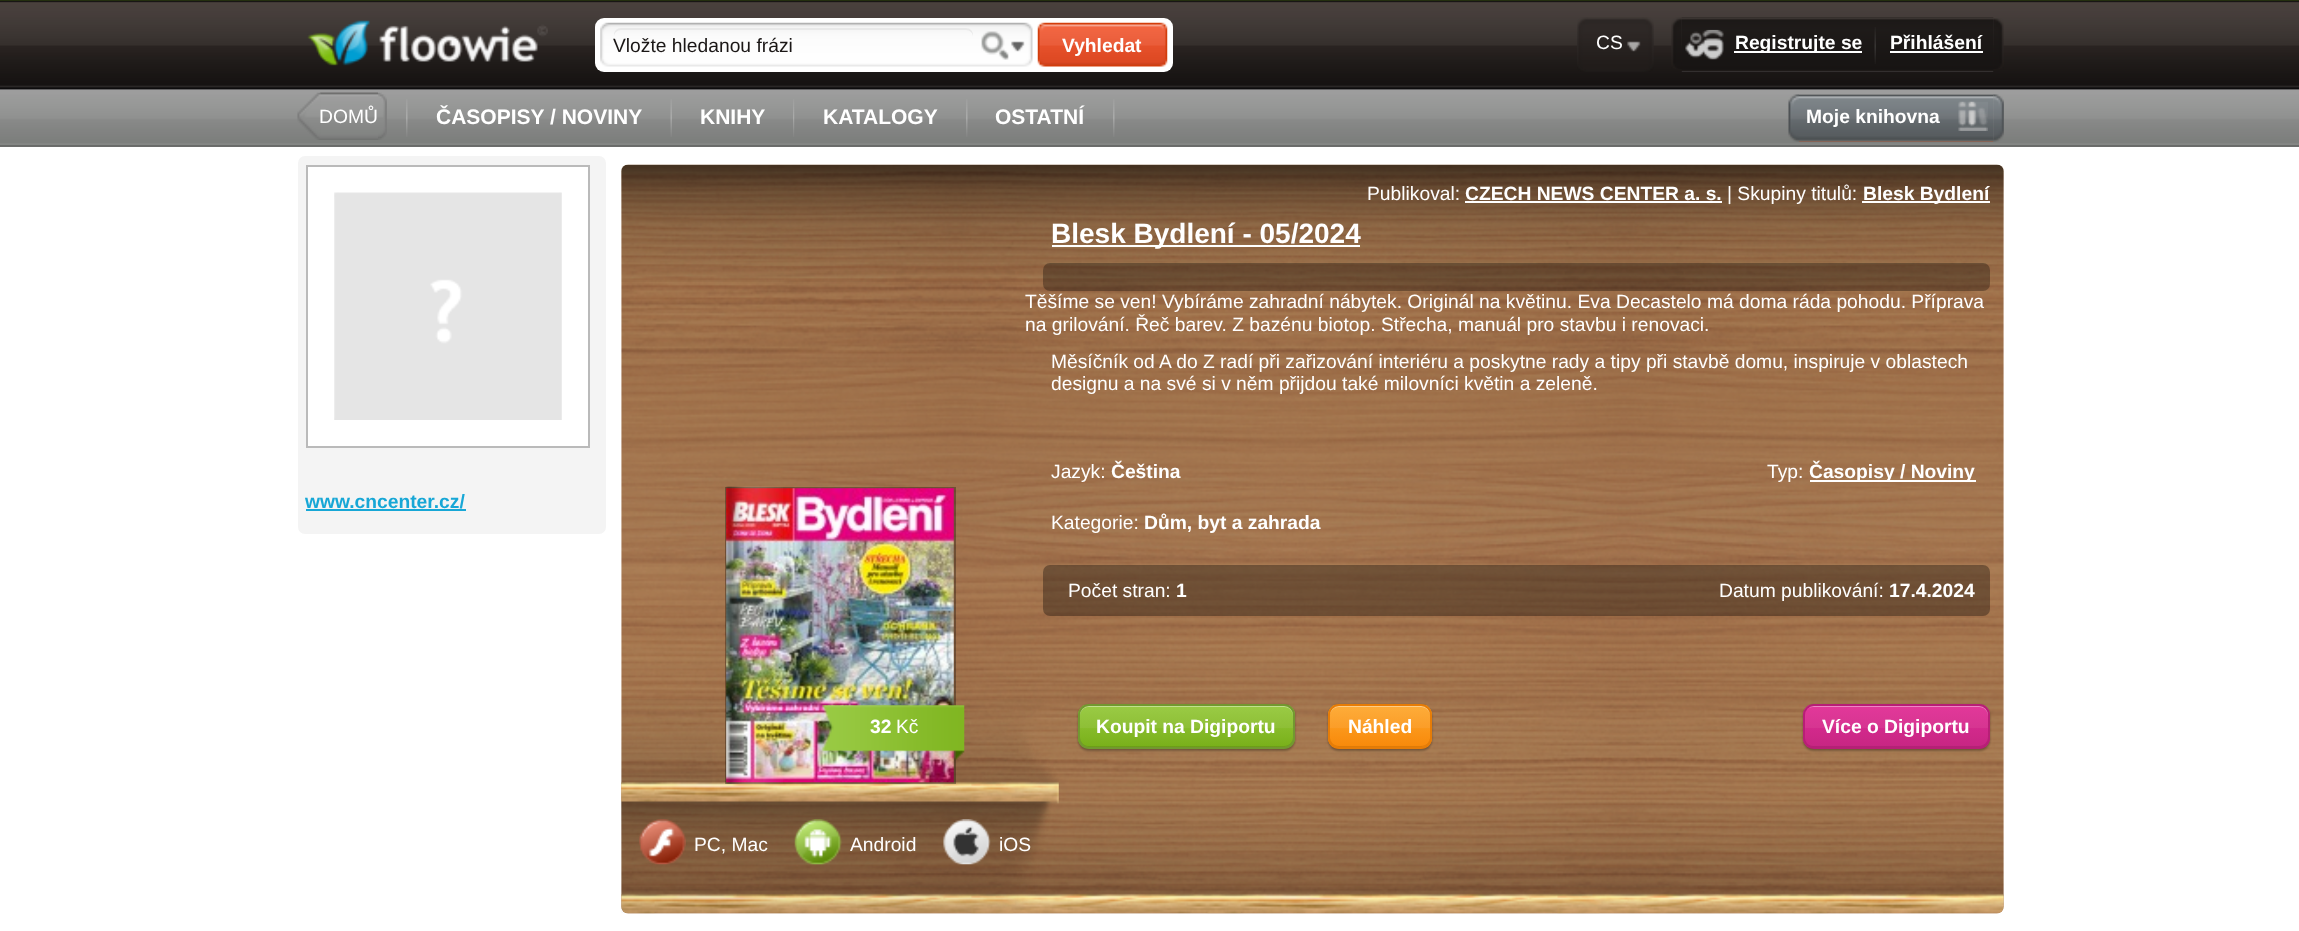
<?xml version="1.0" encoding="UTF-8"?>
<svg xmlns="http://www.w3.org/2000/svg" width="2299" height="931">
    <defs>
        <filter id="blur1" x="-50%" y="-200%" width="200%" height="500%"><feGaussianBlur stdDeviation="1"/></filter>
        <clipPath id="clip1"><rect x="1078" y="704" width="217" height="45" rx="11"/></clipPath>
        <linearGradient id="g1" gradientUnits="userSpaceOnUse" x1="1187" y1="705" x2="1187" y2="747"><stop offset="0" stop-color="#9ACB45"/><stop offset="0.55" stop-color="#8EBF36"/><stop offset="0.56" stop-color="#86BB29"/><stop offset="1" stop-color="#79B01A"/></linearGradient>
        <clipPath id="clip2"><rect x="1328" y="704" width="104" height="45" rx="11"/></clipPath>
        <linearGradient id="g2" gradientUnits="userSpaceOnUse" x1="1380" y1="705" x2="1380" y2="747"><stop offset="0" stop-color="#FEAD3A"/><stop offset="0.55" stop-color="#FB9D28"/><stop offset="0.56" stop-color="#FB971A"/><stop offset="1" stop-color="#F8890A"/></linearGradient>
        <clipPath id="clip3"><rect x="1803" y="704" width="187" height="45" rx="11"/></clipPath>
        <linearGradient id="g3" gradientUnits="userSpaceOnUse" x1="1896" y1="705" x2="1896" y2="747"><stop offset="0" stop-color="#E3389A"/><stop offset="0.55" stop-color="#D63591"/><stop offset="0.56" stop-color="#D2298B"/><stop offset="1" stop-color="#C72683"/></linearGradient>
    </defs>
    <rect width="100%" height="100%" fill="#FFFFFF"/>
    <image x="0" y="0" width="2299" height="147" href="img_01.png"/>
    <image x="307" y="20" width="241" height="46" href="img_02.png"/>
    <rect x="595" y="18" width="578" height="54" rx="9" fill="#FFFFFF"/>
    <image x="600" y="22" width="433" height="45" href="img_03.png"/>
    <path d="M 621 30 H 966 C 970 30 973 33 973 37 V 35 C 973 31 970 28 966 28 H 621 C 617 28 614 31 614 35 V 37 C 614 33 617 30 621 30 Z" fill="#E9E9E9"/>
    <text x="613" y="52" font-family="Liberation Sans" font-size="19.25" fill="#1B1716">Vložte hledanou frázi</text>
    <image x="1037" y="22" width="131" height="45" href="img_04.png"/>
    <text x="1062" y="52" font-family="Liberation Sans" font-size="19.25" font-weight="700" fill="#FFFFFF">Vyhledat</text>
    <image x="1577" y="17" width="77" height="55" href="img_05.png"/>
    <text x="1596" y="49" font-family="Liberation Sans" font-size="19.25" fill="#FFFFFF">CS</text>
    <image x="1671" y="17" width="11" height="52" href="img_06.png"/>
    <image x="1681" y="17" width="313" height="55" href="img_07.png"/>
    <image x="1685" y="29" width="39" height="31" href="img_08.png"/>
    <rect x="1734" y="51" width="128" height="2" fill="#FFFFFF"/>
    <text x="1735" y="49" font-family="Liberation Sans" font-size="19.25" font-weight="700" fill="#FFFFFF">Registrujte se</text>
    <image x="1874" y="27" width="2" height="37" href="img_09.png"/>
    <text x="1890" y="49" font-family="Liberation Sans" font-size="19.25" font-weight="700" fill="#FFFFFF">Přihlášení</text>
    <rect x="1890" y="51" width="93" height="2" fill="#FFFFFF"/>
    <image x="1993" y="18" width="11" height="51" href="img_10.png"/>
    <image x="297" y="92" width="24" height="48" href="img_11.png"/>
    <image x="320" y="92" width="58" height="48" href="img_12.png"/>
    <text x="319" y="123" font-family="Liberation Sans" font-size="19.25" fill="#FFFFFF">DOMŮ</text>
    <image x="378" y="92" width="9" height="48" href="img_13.png"/>
    <image x="406" y="99" width="2" height="38" href="img_14.png"/>
    <text x="436" y="124" font-family="Liberation Sans" font-size="21" font-weight="700" fill="#FFFFFF">ČASOPISY / NOVINY</text>
    <image x="670" y="99" width="2" height="38" href="img_15.png"/>
    <text x="700" y="124" font-family="Liberation Sans" font-size="21" font-weight="700" fill="#FFFFFF">KNIHY</text>
    <image x="793" y="99" width="2" height="38" href="img_16.png"/>
    <text x="823" y="124" font-family="Liberation Sans" font-size="21" font-weight="700" fill="#FFFFFF">KATALOGY</text>
    <image x="966" y="99" width="2" height="38" href="img_14.png"/>
    <text x="995" y="124" font-family="Liberation Sans" font-size="21" font-weight="700" fill="#FFFFFF">OSTATNÍ</text>
    <image x="1113" y="99" width="2" height="38" href="img_14.png"/>
    <image x="1788" y="94" width="11" height="48" href="img_17.png"/>
    <image x="1799" y="94" width="195" height="48" href="img_18.png"/>
    <text x="1806" y="123" font-family="Liberation Sans" font-size="19.25" font-weight="700" fill="#FFFFFF">Moje knihovna</text>
    <image x="1958" y="101" width="30" height="30" href="img_19.png"/>
    <image x="1993" y="94" width="11" height="48" href="img_20.png"/>
    <rect x="298" y="156" width="308" height="378" rx="7" fill="#F4F4F4"/>
    <rect x="307" y="166" width="282" height="281" fill="#FFFFFF" stroke="#BABABA" stroke-width="2"/>
    <image x="334" y="192" width="228" height="228" href="img_21.png"/>
    <text x="305" y="508" font-family="Liberation Sans" font-size="19.25" font-weight="700" fill="#17A7D6">www.cncenter.cz/</text>
    <rect x="306" y="509" width="160" height="2" fill="#17A7D6"/>
    <image x="621" y="164" width="1383" height="750" href="img_22.png"/>
    <image x="621" y="164" width="1383" height="118" href="img_23.png"/>
    <text x="1367" y="200" font-family="Liberation Sans" font-size="19.25" fill="#FFFFFF">Publikoval:</text>
    <text x="1465" y="200" font-family="Liberation Sans" font-size="19.25" font-weight="700" fill="#FFFFFF">CZECH NEWS CENTER a. s.</text>
    <rect x="1465" y="201" width="257" height="2" fill="#FFFFFF"/>
    <text x="1727" y="200" font-family="Liberation Sans" font-size="19.25" fill="#FFFFFF">| Skupiny titulů:</text>
    <rect x="1862" y="201" width="128" height="2" fill="#FFFFFF"/>
    <text x="1863" y="200" font-family="Liberation Sans" font-size="19.25" font-weight="700" fill="#FFFFFF">Blesk Bydlení</text>
    <rect x="1052" y="245" width="308" height="2" fill="#FFFFFF"/>
    <text x="1051" y="243" font-family="Liberation Sans" font-size="28" font-weight="700" fill="#FFFFFF">Blesk Bydlení - 05/2024</text>
    <rect x="1043" y="263" width="947" height="28" rx="7" fill="#000000" fill-opacity="0.3"/>
    <text font-family="Liberation Sans" font-size="19.25" fill="#FFFFFF">
        <tspan x="1025" y="308">Těšíme se ven! Vybíráme zahradní nábytek. Originál na květinu. Eva Decastelo má doma ráda pohodu. Příprava</tspan>
        <tspan x="1025" y="331">na grilování. Řeč barev. Z bazénu biotop. Střecha, manuál pro stavbu i renovaci.</tspan>
    </text>
    <text font-family="Liberation Sans" font-size="19.25" fill="#FFFFFF">
        <tspan x="1051" y="368">Měsíčník od A do Z radí při zařizování interiéru a poskytne rady a tipy při stavbě domu, inspiruje v oblastech</tspan>
        <tspan x="1051" y="390">designu a na své si v něm přijdou také milovníci květin a zeleně.</tspan>
    </text>
    <text x="1051" y="478" font-family="Liberation Sans" font-size="19.25" fill="#FFFFFF">Jazyk:</text>
    <text x="1111" y="478" font-family="Liberation Sans" font-size="19.25" font-weight="700" fill="#FFFFFF">Čeština</text>
    <text x="1767" y="478" font-family="Liberation Sans" font-size="19.25" fill="#FFFFFF">Typ:</text>
    <rect x="1810" y="480" width="166" height="2" fill="#FFFFFF"/>
    <text x="1809" y="478" font-family="Liberation Sans" font-size="19.25" font-weight="700" fill="#FFFFFF">Časopisy / Noviny</text>
    <text x="1051" y="529" font-family="Liberation Sans" font-size="19.25" fill="#FFFFFF">Kategorie:</text>
    <text x="1144" y="529" font-family="Liberation Sans" font-size="19.25" font-weight="700" fill="#FFFFFF">Dům, byt a zahrada</text>
    <rect x="1043" y="565" width="947" height="51" rx="7" fill="#000000" fill-opacity="0.33"/>
    <text x="1068" y="597" font-family="Liberation Sans" font-size="19.25" fill="#FFFFFF">Počet stran:</text>
    <text x="1176" y="597" font-family="Liberation Sans" font-size="19.25" font-weight="700" fill="#FFFFFF">1</text>
    <text x="1719" y="597" font-family="Liberation Sans" font-size="19.25" fill="#FFFFFF">Datum publikování:</text>
    <text x="1889" y="597" font-family="Liberation Sans" font-size="19.25" font-weight="700" fill="#FFFFFF">17.4.2024</text>
    <image x="621" y="802" width="1383" height="112" href="img_31.png"/>
    <image x="621" y="699" width="438" height="214" href="img_27.png"/>
    <rect x="725" y="487" width="231" height="297" fill="#000000" fill-opacity="0.3"/>
    <image x="726" y="488" width="228" height="295" href="img_25.png"/>
    <image x="726" y="486" width="57" height="298" href="img_24.png"/>
    <image x="822" y="705" width="143" height="55" href="img_26.png"/>
    <text x="870" y="733" font-family="Liberation Sans" font-size="19.25" font-weight="700" fill="#FFFFFF">32</text>
    <text x="896" y="733" font-family="Liberation Sans" font-size="19.25" fill="#FFFFFF">Kč</text>
    <rect x="1078" y="705" width="217" height="46" rx="11" fill="#000000" fill-opacity="0.3" filter="url(#blur1)"/>
    <g clip-path="url(#clip1)">
        <rect x="1078" y="705" width="217" height="42" fill="url(#g1)"/>
    </g>
    <path d="M 1080 737 V 738 C 1080 743 1084 747 1089 747 H 1284 C 1289 747 1293 743 1293 738 V 737 C 1293 742 1289 746 1284 746 H 1088 C 1084 746 1080 742 1080 737 Z" fill="#000000" fill-opacity="0.1"/>
    <path d="M 1088 707 H 1284 C 1289 707 1293 711 1293 716 V 714 C 1293 709 1289 705 1284 705 H 1089 C 1084 705 1080 709 1080 714 V 716 C 1080 711 1084 707 1088 707 Z" fill="#FFFFFF" fill-opacity="0.4"/>
    <rect x="1079" y="705" width="215" height="43" rx="10" fill="none" stroke="#729830" stroke-width="2"/>
    <text x="1096" y="733" font-family="Liberation Sans" font-size="19.25" font-weight="700" fill="#FFFFFF">Koupit na Digiportu</text>
    <rect x="1328" y="705" width="104" height="46" rx="11" fill="#000000" fill-opacity="0.3" filter="url(#blur1)"/>
    <g clip-path="url(#clip2)">
        <rect x="1328" y="705" width="104" height="42" fill="url(#g2)"/>
    </g>
    <path d="M 1330 737 C 1330 750 1344 747 1353 747 H 1407 C 1416 747 1430 750 1430 737 C 1430 742 1426 746 1421 746 H 1339 C 1334 746 1330 742 1330 737 Z" fill="#000000" fill-opacity="0.1"/>
    <path d="M 1339 707 H 1421 C 1426 707 1430 711 1430 716 C 1430 702 1418 705 1407 705 H 1353 C 1342 705 1330 702 1330 716 C 1330 711 1334 707 1339 707 Z" fill="#FFFFFF" fill-opacity="0.4"/>
    <rect x="1329" y="705" width="102" height="43" rx="10" fill="none" stroke="#E67C06" stroke-width="2"/>
    <text x="1348" y="733" font-family="Liberation Sans" font-size="19.25" font-weight="700" fill="#FFFFFF">Náhled</text>
    <rect x="1803" y="705" width="187" height="46" rx="11" fill="#000000" fill-opacity="0.3" filter="url(#blur1)"/>
    <g clip-path="url(#clip3)">
        <rect x="1803" y="705" width="187" height="42" fill="url(#g3)"/>
    </g>
    <path d="M 1804 737 V 738 C 1804 743 1808 747 1813 747 H 1979 C 1984 747 1988 743 1988 738 V 737 C 1988 742 1984 746 1979 746 H 1813 C 1808 746 1804 742 1804 737 Z" fill="#000000" fill-opacity="0.1"/>
    <path d="M 1813 707 H 1979 C 1984 707 1988 711 1988 716 V 714 C 1988 709 1984 705 1979 705 H 1813 C 1808 705 1804 709 1804 714 V 716 C 1804 711 1808 707 1813 707 Z" fill="#FFFFFF" fill-opacity="0.4"/>
    <rect x="1804" y="705" width="185" height="43" rx="10" fill="none" stroke="#B71F76" stroke-width="2"/>
    <text x="1822" y="733" font-family="Liberation Sans" font-size="19.25" font-weight="700" fill="#FFFFFF">Více o Digiportu</text>
    <image x="639" y="819" width="47" height="46" href="img_28.png"/>
    <text x="694" y="851" font-family="Liberation Sans" font-size="19.25" fill="#FFFFFF">PC, Mac</text>
    <image x="794" y="819" width="48" height="46" href="img_29.png"/>
    <text x="850" y="851" font-family="Liberation Sans" font-size="19.25" fill="#FFFFFF">Android</text>
    <image x="943" y="819" width="48" height="46" href="img_30.png"/>
    <text x="999" y="851" font-family="Liberation Sans" font-size="19.25" fill="#FFFFFF">iOS</text>
</svg>
